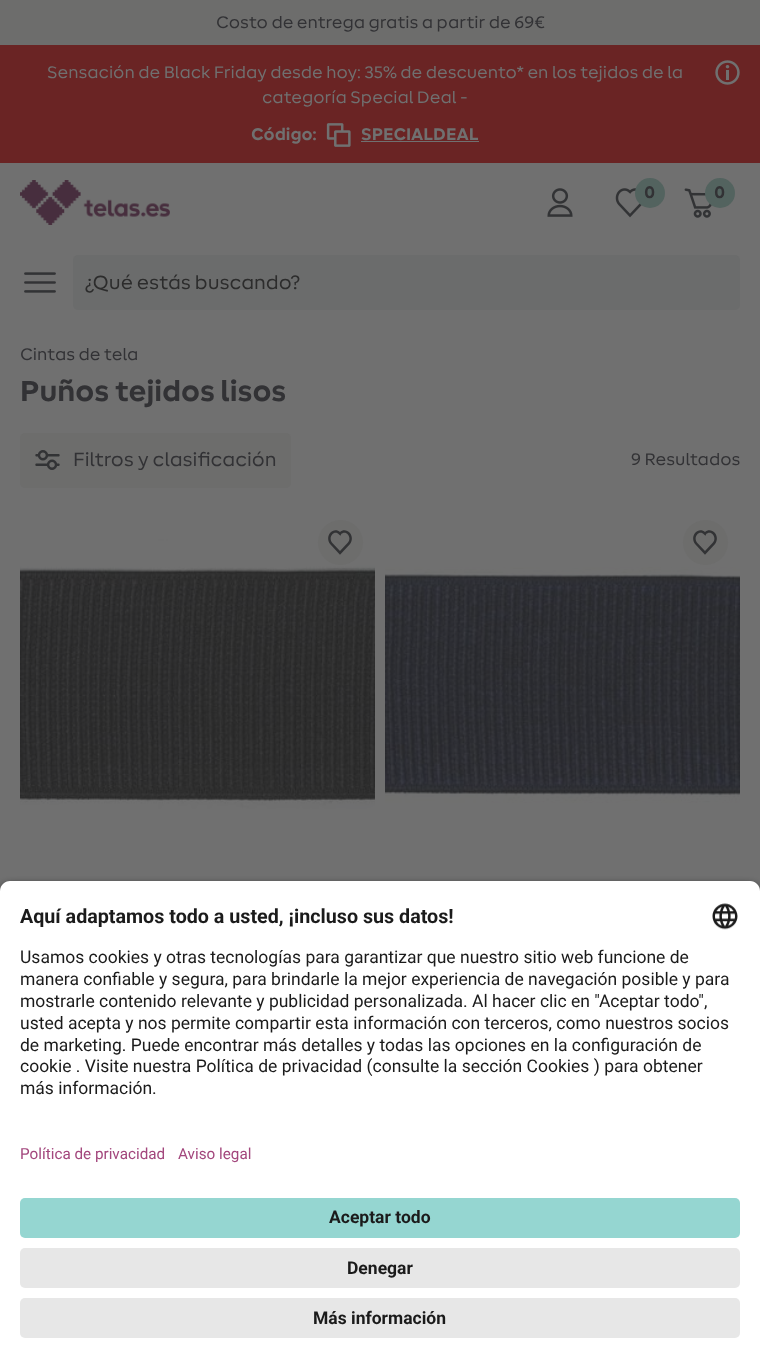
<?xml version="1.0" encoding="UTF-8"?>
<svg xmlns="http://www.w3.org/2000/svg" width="760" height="1372">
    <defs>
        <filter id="blur1" x="-50%" y="-200%" width="200%" height="500%"><feGaussianBlur stdDeviation="4.5"/></filter>
    </defs>
    <rect width="100%" height="100%" fill="#707070"/>
    <rect x="0" y="0" width="760" height="45" fill="#6D6D6C"/>
    <text x="216" y="28" font-family="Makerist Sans" font-size="17.5" fill="#323235">Costo de entrega gratis a partir de 69€</text>
    <rect x="0" y="45" width="760" height="118" fill="#6A2424"/>
    <text x="47" y="78" font-family="Makerist Sans" font-size="17.5" fill="#707070">Sensación de Black Friday desde hoy: 35% de descuento* en los tejidos de la</text>
    <text x="262" y="103" font-family="Makerist Sans" font-size="17.5" fill="#707070">categoría Special Deal -</text>
    <text x="251" y="140" font-family="Makerist Sans" font-size="17.5" font-weight="700" fill="#707070">Código:</text>
    <image x="326" y="123" width="25" height="24" href="img_01.png"/>
    <text x="361" y="140" font-family="Makerist Sans" font-size="17.5" font-weight="700" fill="#707070">SPECIALDEAL</text>
    <rect x="361" y="141" width="118" height="1" fill="#707070"/>
    <image x="715" y="60" width="25" height="25" href="img_02.png"/>
    <image x="20" y="180" width="150" height="45" href="img_03.png"/>
    <image x="547" y="188" width="26" height="29" href="img_04.png"/>
    <image x="615" y="188" width="27" height="30" href="img_05.png"/>
    <circle cx="650" cy="193" r="15" fill="#53635F"/>
    <text x="644" y="198" font-family="Makerist Sans" font-size="17.5" font-weight="700" fill="#323235">0</text>
    <image x="684" y="188" width="28" height="30" href="img_06.png"/>
    <circle cx="720" cy="193" r="15" fill="#53635F"/>
    <text x="714" y="198" font-family="Makerist Sans" font-size="17.5" font-weight="700" fill="#323235">0</text>
    <image x="24" y="272" width="32" height="21" href="img_07.png"/>
    <rect x="73" y="255" width="667" height="55" rx="5" fill="#6B6C6C"/>
    <text x="85" y="289" font-family="Makerist Sans" font-size="20" fill="#2C2C2C">¿Qué estás buscando?</text>
    <text x="20" y="360" font-family="Makerist Sans" font-size="17.5" fill="#323235">Cintas de tela</text>
    <text x="20" y="401" font-family="Makerist Sans" font-size="30" font-weight="700" fill="#323235">Puños tejidos lisos</text>
    <rect x="20" y="433" width="271" height="55" rx="5" fill="#6D6D6C"/>
    <image x="35" y="450" width="25" height="20" href="img_08.png"/>
    <text x="73" y="466" font-family="Makerist Sans" font-size="20" fill="#323235">Filtros y clasificación</text>
    <text x="631" y="465" font-family="Makerist Sans" font-size="17.5" fill="#323235">9 Resultados</text>
    <image x="20" y="539" width="355" height="270" href="img_10.png"/>
    <circle cx="340.5" cy="542.5" r="22.5" fill="#6D6D6C"/>
    <image x="328" y="530" width="24" height="25" href="img_09.png"/>
    <circle cx="705.5" cy="542.5" r="22.5" fill="#6D6D6C"/>
    <image x="693" y="530" width="24" height="25" href="img_09.png"/>
    <image x="385" y="567" width="355" height="236" href="img_11.png"/>
    <rect x="0" y="885" width="760" height="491" rx="10" fill="#000000" fill-opacity="0.8" filter="url(#blur1)"/>
    <path d="M 10 881 H 750 C 755.5 881 760 885.5 760 891 V 1125 H 0 V 891 C 0 885.5 4.5 881 10 881 Z" fill="#FFFFFF"/>
    <text x="20" y="923" font-family="Roboto" font-size="19.7" font-weight="700" fill="#1B1B1B">Aquí adaptamos todo a usted, ¡incluso sus datos!</text>
    <image x="712" y="903" width="26" height="27" href="img_12.png"/>
    <text font-family="Roboto" font-size="17.5" fill="#1B1B1B">
        <tspan x="20" y="963">Usamos cookies y otras tecnologías para garantizar que nuestro sitio web funcione de</tspan>
        <tspan x="20" y="985">manera confiable y segura, para brindarle la mejor experiencia de navegación posible y para</tspan>
        <tspan x="20" y="1007">mostrarle contenido relevante y publicidad personalizada. Al hacer clic en "Aceptar todo",</tspan>
        <tspan x="20" y="1029">usted acepta y nos permite compartir esta información con terceros, como nuestros socios</tspan>
        <tspan x="20" y="1051">de marketing. Puede encontrar más detalles y todas las opciones en la configuración de</tspan>
        <tspan x="20" y="1072">cookie . Visite nuestra Política de privacidad (consulte la sección Cookies ) para obtener</tspan>
        <tspan x="20" y="1094">más información.</tspan>
    </text>
    <rect x="0" y="1125" width="760" height="247" fill="#FFFFFF"/>
    <text x="20" y="1159" font-family="Roboto" font-size="15.25" fill="#A3477D">Política de privacidad</text>
    <text x="178" y="1159" font-family="Roboto" font-size="15.25" fill="#A3477D">Aviso legal</text>
    <rect x="20" y="1198" width="720" height="40" rx="5" fill="#95D6D1"/>
    <text x="329" y="1223" font-family="Roboto" font-size="17.5" font-weight="700" fill="#1B1B1B">Aceptar todo</text>
    <rect x="20" y="1248" width="720" height="40" rx="5" fill="#E7E7E7"/>
    <text x="347" y="1274" font-family="Roboto" font-size="17.5" font-weight="700" fill="#1B1B1B">Denegar</text>
    <rect x="20" y="1298" width="720" height="40" rx="5" fill="#E7E7E7"/>
    <text x="313" y="1324" font-family="Roboto" font-size="17.5" font-weight="700" fill="#1B1B1B">Más información</text>
</svg>
